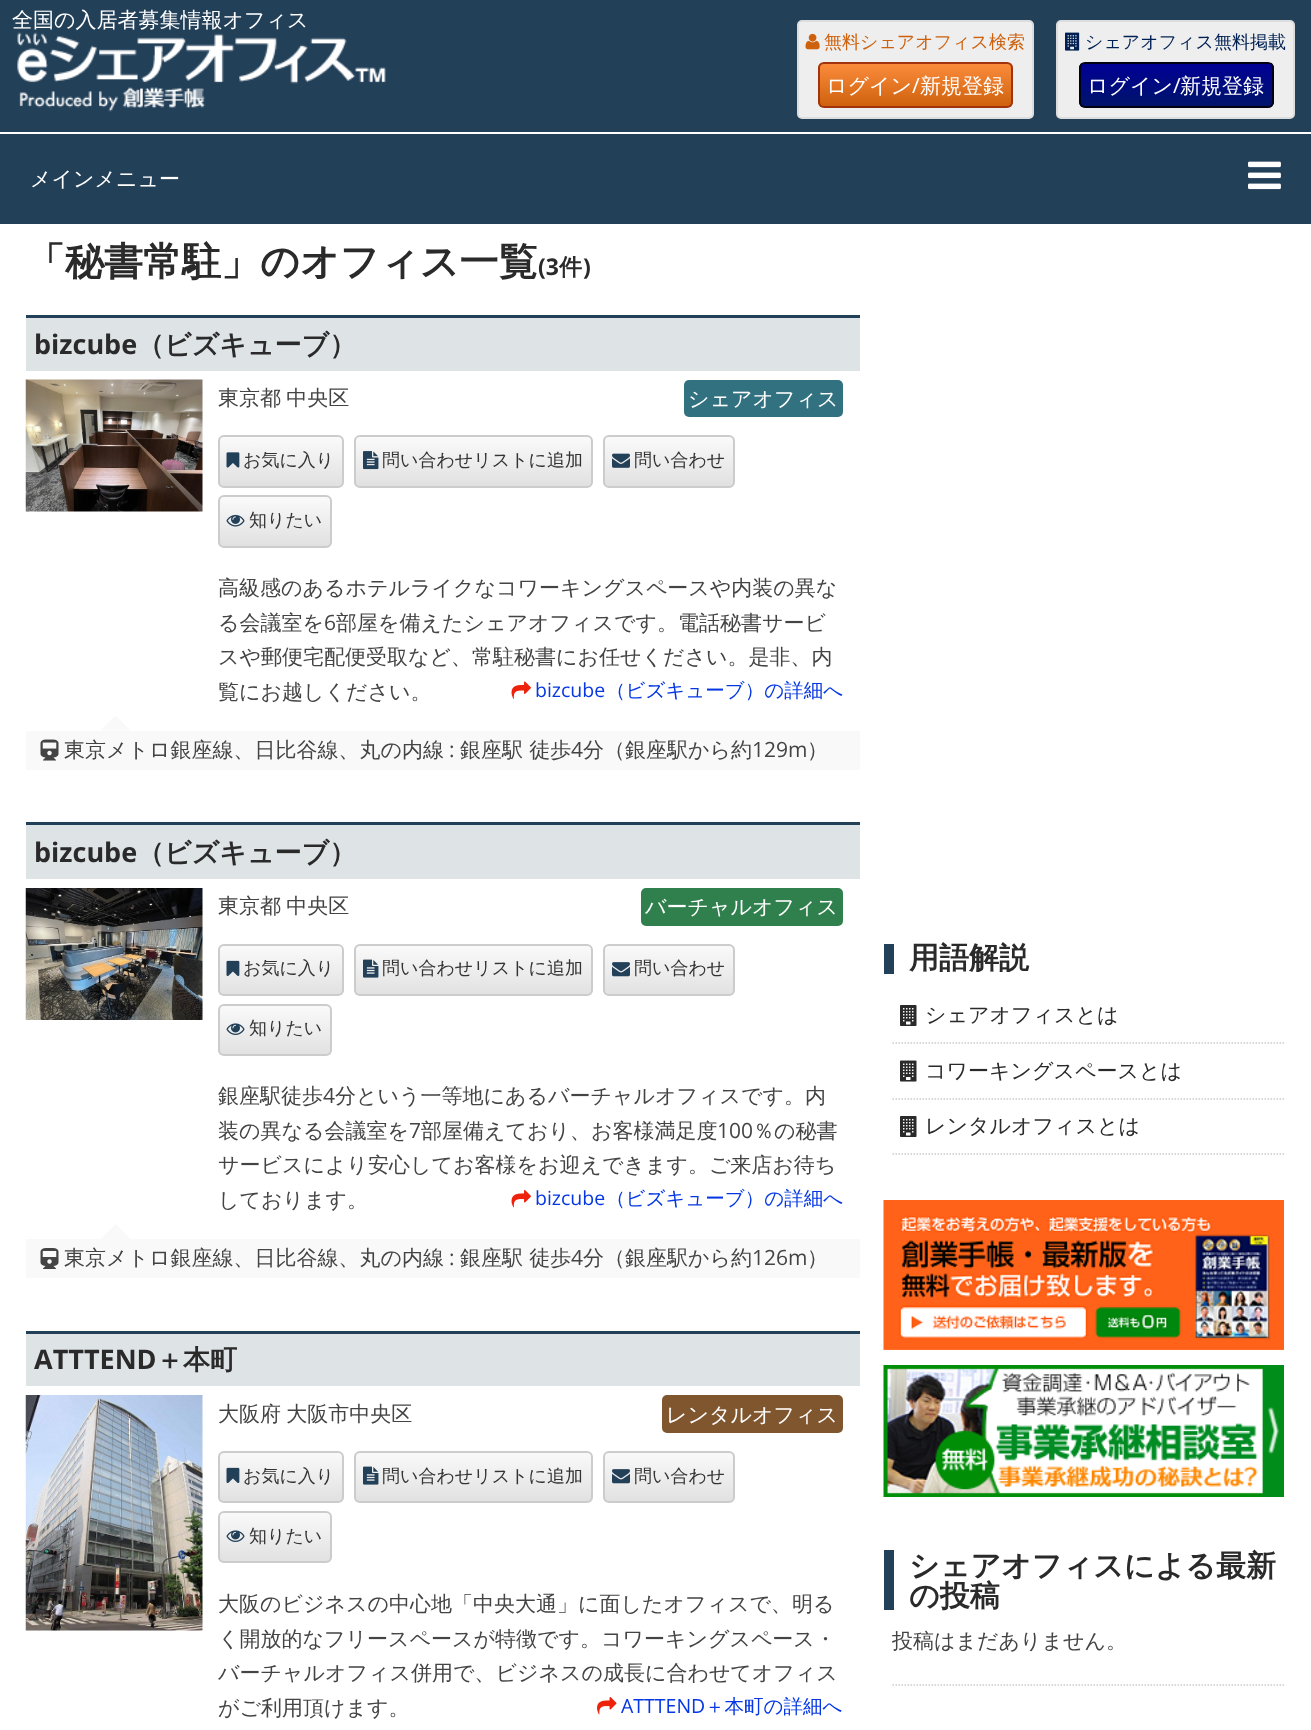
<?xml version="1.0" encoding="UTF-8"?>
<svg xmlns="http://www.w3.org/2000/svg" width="1311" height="1730">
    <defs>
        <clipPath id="clip1"><rect x="818" y="62" width="195" height="46" rx="6"/></clipPath>
        <linearGradient id="g1" gradientUnits="userSpaceOnUse" x1="915" y1="63" x2="915" y2="107"><stop offset="0" stop-color="#FB8C3C"/><stop offset="1" stop-color="#CE610D"/></linearGradient>
        <clipPath id="clip2"><rect x="1079" y="62" width="195" height="46" rx="6"/></clipPath>
        <linearGradient id="g2" gradientUnits="userSpaceOnUse" x1="1176" y1="63" x2="1176" y2="107"><stop offset="0" stop-color="#000095"/><stop offset="1" stop-color="#00156A"/></linearGradient>
        <clipPath id="clip3"><rect x="218" y="435" width="126" height="53" rx="6"/></clipPath>
        <linearGradient id="g3" gradientUnits="userSpaceOnUse" x1="281" y1="437" x2="281" y2="486"><stop offset="0" stop-color="#FAFAFA"/><stop offset="1" stop-color="#E1E1E1"/></linearGradient>
        <clipPath id="clip4"><rect x="354" y="435" width="239" height="53" rx="6"/></clipPath>
        <linearGradient id="g4" gradientUnits="userSpaceOnUse" x1="473" y1="437" x2="473" y2="486"><stop offset="0" stop-color="#FAFAFA"/><stop offset="1" stop-color="#E1E1E1"/></linearGradient>
        <clipPath id="clip5"><rect x="603" y="435" width="132" height="53" rx="6"/></clipPath>
        <linearGradient id="g5" gradientUnits="userSpaceOnUse" x1="669" y1="437" x2="669" y2="486"><stop offset="0" stop-color="#FAFAFA"/><stop offset="1" stop-color="#E1E1E1"/></linearGradient>
        <clipPath id="clip6"><rect x="218" y="495" width="114" height="53" rx="6"/></clipPath>
        <linearGradient id="g6" gradientUnits="userSpaceOnUse" x1="275" y1="497" x2="275" y2="546"><stop offset="0" stop-color="#FAFAFA"/><stop offset="1" stop-color="#E1E1E1"/></linearGradient>
        <clipPath id="clip7"><rect x="218" y="944" width="126" height="52" rx="6"/></clipPath>
        <linearGradient id="g7" gradientUnits="userSpaceOnUse" x1="281" y1="945" x2="281" y2="995"><stop offset="0" stop-color="#FAFAFA"/><stop offset="1" stop-color="#E1E1E1"/></linearGradient>
        <clipPath id="clip8"><rect x="354" y="944" width="239" height="52" rx="6"/></clipPath>
        <linearGradient id="g8" gradientUnits="userSpaceOnUse" x1="473" y1="945" x2="473" y2="995"><stop offset="0" stop-color="#FAFAFA"/><stop offset="1" stop-color="#E1E1E1"/></linearGradient>
        <clipPath id="clip9"><rect x="603" y="944" width="132" height="52" rx="6"/></clipPath>
        <linearGradient id="g9" gradientUnits="userSpaceOnUse" x1="669" y1="945" x2="669" y2="995"><stop offset="0" stop-color="#FAFAFA"/><stop offset="1" stop-color="#E1E1E1"/></linearGradient>
        <clipPath id="clip10"><rect x="218" y="1004" width="114" height="52" rx="6"/></clipPath>
        <linearGradient id="g10" gradientUnits="userSpaceOnUse" x1="275" y1="1005" x2="275" y2="1055"><stop offset="0" stop-color="#FAFAFA"/><stop offset="1" stop-color="#E1E1E1"/></linearGradient>
        <clipPath id="clip11"><rect x="218" y="1451" width="126" height="52" rx="6"/></clipPath>
        <linearGradient id="g11" gradientUnits="userSpaceOnUse" x1="281" y1="1452" x2="281" y2="1502"><stop offset="0" stop-color="#FAFAFA"/><stop offset="1" stop-color="#E1E1E1"/></linearGradient>
        <clipPath id="clip12"><rect x="354" y="1451" width="239" height="52" rx="6"/></clipPath>
        <linearGradient id="g12" gradientUnits="userSpaceOnUse" x1="473" y1="1452" x2="473" y2="1502"><stop offset="0" stop-color="#FAFAFA"/><stop offset="1" stop-color="#E1E1E1"/></linearGradient>
        <clipPath id="clip13"><rect x="603" y="1451" width="132" height="52" rx="6"/></clipPath>
        <linearGradient id="g13" gradientUnits="userSpaceOnUse" x1="669" y1="1452" x2="669" y2="1502"><stop offset="0" stop-color="#FAFAFA"/><stop offset="1" stop-color="#E1E1E1"/></linearGradient>
        <clipPath id="clip14"><rect x="218" y="1511" width="114" height="52" rx="6"/></clipPath>
        <linearGradient id="g14" gradientUnits="userSpaceOnUse" x1="275" y1="1512" x2="275" y2="1562"><stop offset="0" stop-color="#FAFAFA"/><stop offset="1" stop-color="#E1E1E1"/></linearGradient>
    </defs>
    <rect width="100%" height="100%" fill="#FFFFFF"/>
    <rect x="0" y="0" width="1311" height="132" fill="#234059"/>
    <text x="12" y="27" font-family="WenQuanYi Zen Hei" font-size="21" font-weight="500" fill="#FFFFFF">全国の入居者募集情報オフィス</text>
    <image x="17" y="32" width="369" height="80" href="img_01.png"/>
    <rect x="798" y="21" width="235" height="97" rx="4" fill="#EEEEEE" stroke="#DDDDDD" stroke-width="2"/>
    <image x="805" y="33" width="15" height="17" href="img_02.png"/>
    <text x="824" y="48" font-family="WenQuanYi Zen Hei" font-size="18" font-weight="500" fill="#CE610D">無料シェアオフィス検索</text>
    <g clip-path="url(#clip1)">
        <rect x="818" y="63" width="195" height="44" fill="url(#g1)"/>
    </g>
    <rect x="819" y="63" width="193" height="44" rx="5" fill="none" stroke="#A1340D" stroke-width="2"/>
    <text x="826" y="93" font-family="WenQuanYi Zen Hei" font-size="21" font-weight="500" fill="#FFFFFF">ログイン</text>
    <text x="912" y="93" font-family="Open Sans" font-size="21" fill="#FFFFFF">/</text>
    <text x="920" y="93" font-family="WenQuanYi Zen Hei" font-size="21" font-weight="500" fill="#FFFFFF">新規登録</text>
    <rect x="1057" y="21" width="237" height="97" rx="4" fill="#EEEEEE" stroke="#DDDDDD" stroke-width="2"/>
    <image x="1065" y="32" width="15" height="19" href="img_03.png"/>
    <text x="1085" y="48" font-family="WenQuanYi Zen Hei" font-size="18" font-weight="500" fill="#002053">シェアオフィス無料掲載</text>
    <g clip-path="url(#clip2)">
        <rect x="1079" y="63" width="195" height="44" fill="url(#g2)"/>
    </g>
    <rect x="1080" y="63" width="193" height="44" rx="5" fill="none" stroke="#000113" stroke-width="2"/>
    <text x="1087" y="93" font-family="WenQuanYi Zen Hei" font-size="21" font-weight="500" fill="#FFFFFF">ログイン</text>
    <text x="1173" y="93" font-family="Open Sans" font-size="21" fill="#FFFFFF">/</text>
    <text x="1180" y="93" font-family="WenQuanYi Zen Hei" font-size="21" font-weight="500" fill="#FFFFFF">新規登録</text>
    <rect x="0" y="134" width="1311" height="90" fill="#234059"/>
    <text x="30" y="186" font-family="WenQuanYi Zen Hei" font-size="21" font-weight="500" fill="#FFFFFF">メインメニュー</text>
    <image x="1248" y="161" width="33" height="29" href="img_04.png"/>
    <text x="26" y="275" font-family="WenQuanYi Zen Hei" font-size="39" font-weight="700" fill="#2A2A2A">「秘書常駐」のオフィス一覧</text>
    <text x="538" y="275" font-family="Open Sans" font-size="23" font-weight="700" fill="#2A2A2A">(3</text>
    <text x="559" y="275" font-family="WenQuanYi Zen Hei" font-size="23" font-weight="700" fill="#2A2A2A">件</text>
    <text x="583" y="275" font-family="Open Sans" font-size="23" font-weight="700" fill="#2A2A2A">)</text>
    <rect x="26" y="318" width="834" height="53" fill="#DEE3E6"/>
    <rect x="26" y="315" width="834" height="3" fill="#234059"/>
    <text x="34" y="354" font-family="Open Sans" font-size="27" font-weight="700" fill="#2A2A2A">bizcube</text>
    <text x="137" y="354" font-family="WenQuanYi Zen Hei" font-size="27" font-weight="700" fill="#2A2A2A">（ビズキューブ）</text>
    <image x="25" y="379" width="178" height="133" href="img_05.png"/>
    <text x="218" y="405" word-spacing="-1" font-family="WenQuanYi Zen Hei" font-size="21" font-weight="500" fill="#444444">東京都 中央区</text>
    <rect x="684" y="380" width="159" height="37" rx="5" fill="#327180"/>
    <text x="688" y="406" font-family="WenQuanYi Zen Hei" font-size="21" font-weight="500" fill="#FFFFFF">シェアオフィス</text>
    <g clip-path="url(#clip3)">
        <rect x="218" y="437" width="126" height="49" fill="url(#g3)"/>
    </g>
    <rect x="219" y="436" width="124" height="51" rx="5" fill="none" stroke="#CCCCCC" stroke-width="2"/>
    <image x="226" y="452" width="14" height="16" href="img_06.png"/>
    <text x="243" y="466" font-family="WenQuanYi Zen Hei" font-size="18" font-weight="500" fill="#333333">お気に入り</text>
    <g clip-path="url(#clip4)">
        <rect x="354" y="437" width="239" height="49" fill="url(#g4)"/>
    </g>
    <rect x="355" y="436" width="237" height="51" rx="5" fill="none" stroke="#CCCCCC" stroke-width="2"/>
    <image x="363" y="451" width="16" height="19" href="img_07.png"/>
    <text x="382" y="466" font-family="WenQuanYi Zen Hei" font-size="18" font-weight="500" fill="#333333">問い合わせリストに追加</text>
    <g clip-path="url(#clip5)">
        <rect x="603" y="437" width="132" height="49" fill="url(#g5)"/>
    </g>
    <rect x="604" y="436" width="130" height="51" rx="5" fill="none" stroke="#CCCCCC" stroke-width="2"/>
    <image x="612" y="453" width="18" height="15" href="img_08.png"/>
    <text x="634" y="466" font-family="WenQuanYi Zen Hei" font-size="18" font-weight="500" fill="#333333">問い合わせ</text>
    <g clip-path="url(#clip6)">
        <rect x="218" y="497" width="114" height="49" fill="url(#g6)"/>
    </g>
    <rect x="219" y="496" width="112" height="51" rx="5" fill="none" stroke="#CCCCCC" stroke-width="2"/>
    <image x="226" y="514" width="19" height="13" href="img_09.png"/>
    <text x="249" y="526" font-family="WenQuanYi Zen Hei" font-size="18" font-weight="500" fill="#333333">知りたい</text>
    <text font-family="WenQuanYi Zen Hei" font-size="21" font-weight="500" fill="#444444">
        <tspan x="218" y="595">高級感のあるホテルライクなコワーキングスペースや内装の異な</tspan>
        <tspan x="218" y="630">る会議室を</tspan>
    </text>
    <text x="324" y="630" font-family="Open Sans" font-size="21" fill="#444444">6</text>
    <text x="336" y="630" font-family="WenQuanYi Zen Hei" font-size="21" font-weight="500" fill="#444444">部屋を備えたシェアオフィスです。電話秘書サービ</text>
    <text font-family="WenQuanYi Zen Hei" font-size="21" font-weight="500" fill="#444444">
        <tspan x="218" y="664">スや郵便宅配便受取など、常駐秘書にお任せください。是非、内</tspan>
        <tspan x="218" y="699">覧にお越しください。</tspan>
    </text>
    <image x="511" y="681" width="20" height="18" href="img_10.png"/>
    <text x="535" y="697" font-family="Open Sans" font-size="19.5" fill="#0537E3">bizcube</text>
    <text x="606" y="697" font-family="WenQuanYi Zen Hei" font-size="19.5" font-weight="500" fill="#0537E3">（ビズキューブ）の詳細へ</text>
    <rect x="26" y="731" width="834" height="39" fill="#F9F9F9"/>
    <path d="M 130.5 730.5 H 100.5 L 115.5 715.5 Z" fill="#F9F9F9"/>
    <image x="40" y="739" width="19" height="22" href="img_11.png"/>
    <text x="64" y="757" font-family="WenQuanYi Zen Hei" font-size="21" font-weight="500" fill="#444444">東京メトロ銀座線、日比谷線、丸の内線</text>
    <text x="449" y="757" font-family="Open Sans" font-size="21" fill="#444444">:</text>
    <text x="460" y="757" font-family="WenQuanYi Zen Hei" font-size="21" font-weight="500" fill="#444444">銀座駅 徒歩</text>
    <text x="571" y="757" font-family="Open Sans" font-size="21" fill="#444444">4</text>
    <text x="583" y="757" font-family="WenQuanYi Zen Hei" font-size="21" font-weight="500" fill="#444444">分（銀座駅から約</text>
    <text x="752" y="757" font-family="Open Sans" font-size="21" fill="#444444">129m</text>
    <text x="807" y="757" font-family="WenQuanYi Zen Hei" font-size="21" font-weight="500" fill="#444444">）</text>
    <rect x="26" y="825" width="834" height="54" fill="#DEE3E6"/>
    <rect x="26" y="822" width="834" height="3" fill="#234059"/>
    <text x="34" y="862" font-family="Open Sans" font-size="27" font-weight="700" fill="#2A2A2A">bizcube</text>
    <text x="137" y="862" font-family="WenQuanYi Zen Hei" font-size="27" font-weight="700" fill="#2A2A2A">（ビズキューブ）</text>
    <image x="25" y="888" width="178" height="132" href="img_12.png"/>
    <text x="218" y="913" word-spacing="-1" font-family="WenQuanYi Zen Hei" font-size="21" font-weight="500" fill="#444444">東京都 中央区</text>
    <rect x="641" y="888" width="202" height="38" rx="5" fill="#2F804D"/>
    <text x="645" y="914" font-family="WenQuanYi Zen Hei" font-size="21" font-weight="500" fill="#FFFFFF">バーチャルオフィス</text>
    <g clip-path="url(#clip7)">
        <rect x="218" y="945" width="126" height="50" fill="url(#g7)"/>
    </g>
    <rect x="219" y="945" width="124" height="50" rx="5" fill="none" stroke="#CCCCCC" stroke-width="2"/>
    <image x="226" y="960" width="14" height="16" href="img_13.png"/>
    <text x="243" y="974" font-family="WenQuanYi Zen Hei" font-size="18" font-weight="500" fill="#333333">お気に入り</text>
    <g clip-path="url(#clip8)">
        <rect x="354" y="945" width="239" height="50" fill="url(#g8)"/>
    </g>
    <rect x="355" y="945" width="237" height="50" rx="5" fill="none" stroke="#CCCCCC" stroke-width="2"/>
    <image x="363" y="959" width="16" height="19" href="img_14.png"/>
    <text x="382" y="974" font-family="WenQuanYi Zen Hei" font-size="18" font-weight="500" fill="#333333">問い合わせリストに追加</text>
    <g clip-path="url(#clip9)">
        <rect x="603" y="945" width="132" height="50" fill="url(#g9)"/>
    </g>
    <rect x="604" y="945" width="130" height="50" rx="5" fill="none" stroke="#CCCCCC" stroke-width="2"/>
    <image x="612" y="962" width="18" height="15" href="img_15.png"/>
    <text x="634" y="974" font-family="WenQuanYi Zen Hei" font-size="18" font-weight="500" fill="#333333">問い合わせ</text>
    <g clip-path="url(#clip10)">
        <rect x="218" y="1005" width="114" height="50" fill="url(#g10)"/>
    </g>
    <rect x="219" y="1005" width="112" height="50" rx="5" fill="none" stroke="#CCCCCC" stroke-width="2"/>
    <image x="226" y="1023" width="19" height="12" href="img_16.png"/>
    <text x="249" y="1034" font-family="WenQuanYi Zen Hei" font-size="18" font-weight="500" fill="#333333">知りたい</text>
    <text x="218" y="1103" font-family="WenQuanYi Zen Hei" font-size="21" font-weight="500" fill="#444444">銀座駅徒歩</text>
    <text x="323" y="1103" font-family="Open Sans" font-size="21" fill="#444444">4</text>
    <text x="335" y="1103" font-family="WenQuanYi Zen Hei" font-size="21" font-weight="500" fill="#444444">分という一等地にあるバーチャルオフィスです。内</text>
    <text x="218" y="1138" font-family="WenQuanYi Zen Hei" font-size="21" font-weight="500" fill="#444444">装の異なる会議室を</text>
    <text x="409" y="1138" font-family="Open Sans" font-size="21" fill="#444444">7</text>
    <text x="421" y="1138" font-family="WenQuanYi Zen Hei" font-size="21" font-weight="500" fill="#444444">部屋備えており、お客様満足度</text>
    <text x="717" y="1138" font-family="Open Sans" font-size="21" fill="#444444">100</text>
    <text x="753" y="1138" font-family="WenQuanYi Zen Hei" font-size="21" font-weight="500" fill="#444444">％の秘書</text>
    <text font-family="WenQuanYi Zen Hei" font-size="21" font-weight="500" fill="#444444">
        <tspan x="218" y="1172">サービスにより安心してお客様をお迎えできます。ご来店お待ち</tspan>
        <tspan x="218" y="1207">しております。</tspan>
    </text>
    <image x="511" y="1190" width="20" height="18" href="img_17.png"/>
    <text x="535" y="1205" font-family="Open Sans" font-size="19.5" fill="#0537E3">bizcube</text>
    <text x="606" y="1205" font-family="WenQuanYi Zen Hei" font-size="19.5" font-weight="500" fill="#0537E3">（ビズキューブ）の詳細へ</text>
    <rect x="26" y="1239" width="834" height="39" fill="#F9F9F9"/>
    <path d="M 130.5 1239 H 100.5 L 115.5 1224 Z" fill="#F9F9F9"/>
    <image x="40" y="1248" width="19" height="21" href="img_18.png"/>
    <text x="64" y="1265" font-family="WenQuanYi Zen Hei" font-size="21" font-weight="500" fill="#444444">東京メトロ銀座線、日比谷線、丸の内線</text>
    <text x="449" y="1265" font-family="Open Sans" font-size="21" fill="#444444">:</text>
    <text x="460" y="1265" font-family="WenQuanYi Zen Hei" font-size="21" font-weight="500" fill="#444444">銀座駅 徒歩</text>
    <text x="571" y="1265" font-family="Open Sans" font-size="21" fill="#444444">4</text>
    <text x="583" y="1265" font-family="WenQuanYi Zen Hei" font-size="21" font-weight="500" fill="#444444">分（銀座駅から約</text>
    <text x="752" y="1265" font-family="Open Sans" font-size="21" fill="#444444">126m</text>
    <text x="807" y="1265" font-family="WenQuanYi Zen Hei" font-size="21" font-weight="500" fill="#444444">）</text>
    <rect x="26" y="1334" width="834" height="52" fill="#DEE3E6"/>
    <rect x="26" y="1331" width="834" height="3" fill="#234059"/>
    <text x="34" y="1369" font-family="Open Sans" font-size="27" font-weight="700" fill="#2A2A2A">ATTTEND</text>
    <text x="156" y="1369" font-family="WenQuanYi Zen Hei" font-size="27" font-weight="700" fill="#2A2A2A">＋本町</text>
    <image x="25" y="1395" width="178" height="236" href="img_19.png"/>
    <text x="218" y="1421" word-spacing="-1" font-family="WenQuanYi Zen Hei" font-size="21" font-weight="500" fill="#444444">大阪府 大阪市中央区</text>
    <rect x="662" y="1395" width="181" height="38" rx="5" fill="#80562F"/>
    <text x="666" y="1422" font-family="WenQuanYi Zen Hei" font-size="21" font-weight="500" fill="#FFFFFF">レンタルオフィス</text>
    <g clip-path="url(#clip11)">
        <rect x="218" y="1452" width="126" height="50" fill="url(#g11)"/>
    </g>
    <rect x="219" y="1452" width="124" height="50" rx="5" fill="none" stroke="#CCCCCC" stroke-width="2"/>
    <image x="226" y="1467" width="14" height="16" href="img_13.png"/>
    <text x="243" y="1482" font-family="WenQuanYi Zen Hei" font-size="18" font-weight="500" fill="#333333">お気に入り</text>
    <g clip-path="url(#clip12)">
        <rect x="354" y="1452" width="239" height="50" fill="url(#g12)"/>
    </g>
    <rect x="355" y="1452" width="237" height="50" rx="5" fill="none" stroke="#CCCCCC" stroke-width="2"/>
    <image x="363" y="1466" width="16" height="19" href="img_14.png"/>
    <text x="382" y="1482" font-family="WenQuanYi Zen Hei" font-size="18" font-weight="500" fill="#333333">問い合わせリストに追加</text>
    <g clip-path="url(#clip13)">
        <rect x="603" y="1452" width="132" height="50" fill="url(#g13)"/>
    </g>
    <rect x="604" y="1452" width="130" height="50" rx="5" fill="none" stroke="#CCCCCC" stroke-width="2"/>
    <image x="612" y="1469" width="18" height="15" href="img_15.png"/>
    <text x="634" y="1482" font-family="WenQuanYi Zen Hei" font-size="18" font-weight="500" fill="#333333">問い合わせ</text>
    <g clip-path="url(#clip14)">
        <rect x="218" y="1512" width="114" height="50" fill="url(#g14)"/>
    </g>
    <rect x="219" y="1512" width="112" height="50" rx="5" fill="none" stroke="#CCCCCC" stroke-width="2"/>
    <image x="226" y="1530" width="19" height="12" href="img_16.png"/>
    <text x="249" y="1542" font-family="WenQuanYi Zen Hei" font-size="18" font-weight="500" fill="#333333">知りたい</text>
    <text font-family="WenQuanYi Zen Hei" font-size="21" font-weight="500" fill="#444444">
        <tspan x="218" y="1611">大阪のビジネスの中心地「中央大通」に面したオフィスで、明る</tspan>
        <tspan x="218" y="1646">く開放的なフリースペースが特徴です。コワーキングスペース・</tspan>
        <tspan x="218" y="1680">バーチャルオフィス併用で、ビジネスの成長に合わせてオフィス</tspan>
        <tspan x="218" y="1715">がご利用頂けます。</tspan>
    </text>
    <image x="597" y="1697" width="20" height="18" href="img_20.png"/>
    <text x="621" y="1713" font-family="Open Sans" font-size="19.5" fill="#0537E3">ATTTEND</text>
    <text x="705" y="1713" font-family="WenQuanYi Zen Hei" font-size="19.5" font-weight="500" fill="#0537E3">＋本町の詳細へ</text>
    <rect x="884" y="944" width="10" height="30" fill="#234059"/>
    <text x="909" y="968" font-family="WenQuanYi Zen Hei" font-size="30" font-weight="700" fill="#2A2A2A">用語解説</text>
    <path d="M 892.5 1043 H 1284" fill="none" stroke="#CCCCCC" stroke-width="1.5" stroke-dasharray="1.5 1.5"/>
    <image x="900" y="1005" width="17" height="21" href="img_21.png"/>
    <text x="925" y="1022" font-family="WenQuanYi Zen Hei" font-size="21" font-weight="500" fill="#2A2A2A">シェアオフィスとは</text>
    <path d="M 892.5 1099 H 1284" fill="none" stroke="#CCCCCC" stroke-width="1.5" stroke-dasharray="1.5 1.5"/>
    <image x="900" y="1060" width="17" height="22" href="img_22.png"/>
    <text x="925" y="1078" font-family="WenQuanYi Zen Hei" font-size="21" font-weight="500" fill="#2A2A2A">コワーキングスペースとは</text>
    <path d="M 892.5 1154 H 1284" fill="none" stroke="#CCCCCC" stroke-width="1.5" stroke-dasharray="1.5 1.5"/>
    <image x="900" y="1116" width="17" height="21" href="img_21.png"/>
    <text x="925" y="1133" font-family="WenQuanYi Zen Hei" font-size="21" font-weight="500" fill="#2A2A2A">レンタルオフィスとは</text>
    <image x="883" y="1200" width="401" height="150" href="img_23.png"/>
    <image x="883" y="1365" width="401" height="132" href="img_24.png"/>
    <rect x="884" y="1550" width="10" height="60" fill="#234059"/>
    <text font-family="WenQuanYi Zen Hei" font-size="30" font-weight="700" fill="#2A2A2A">
        <tspan x="909" y="1576">シェアオフィスによる最新</tspan>
        <tspan x="909" y="1606">の投稿</tspan>
    </text>
    <path d="M 892.5 1685 H 1284" fill="none" stroke="#CCCCCC" stroke-width="1.5" stroke-dasharray="1.5 1.5"/>
    <text x="892" y="1648" font-family="WenQuanYi Zen Hei" font-size="21" font-weight="500" fill="#444444">投稿はまだありません。</text>
</svg>
